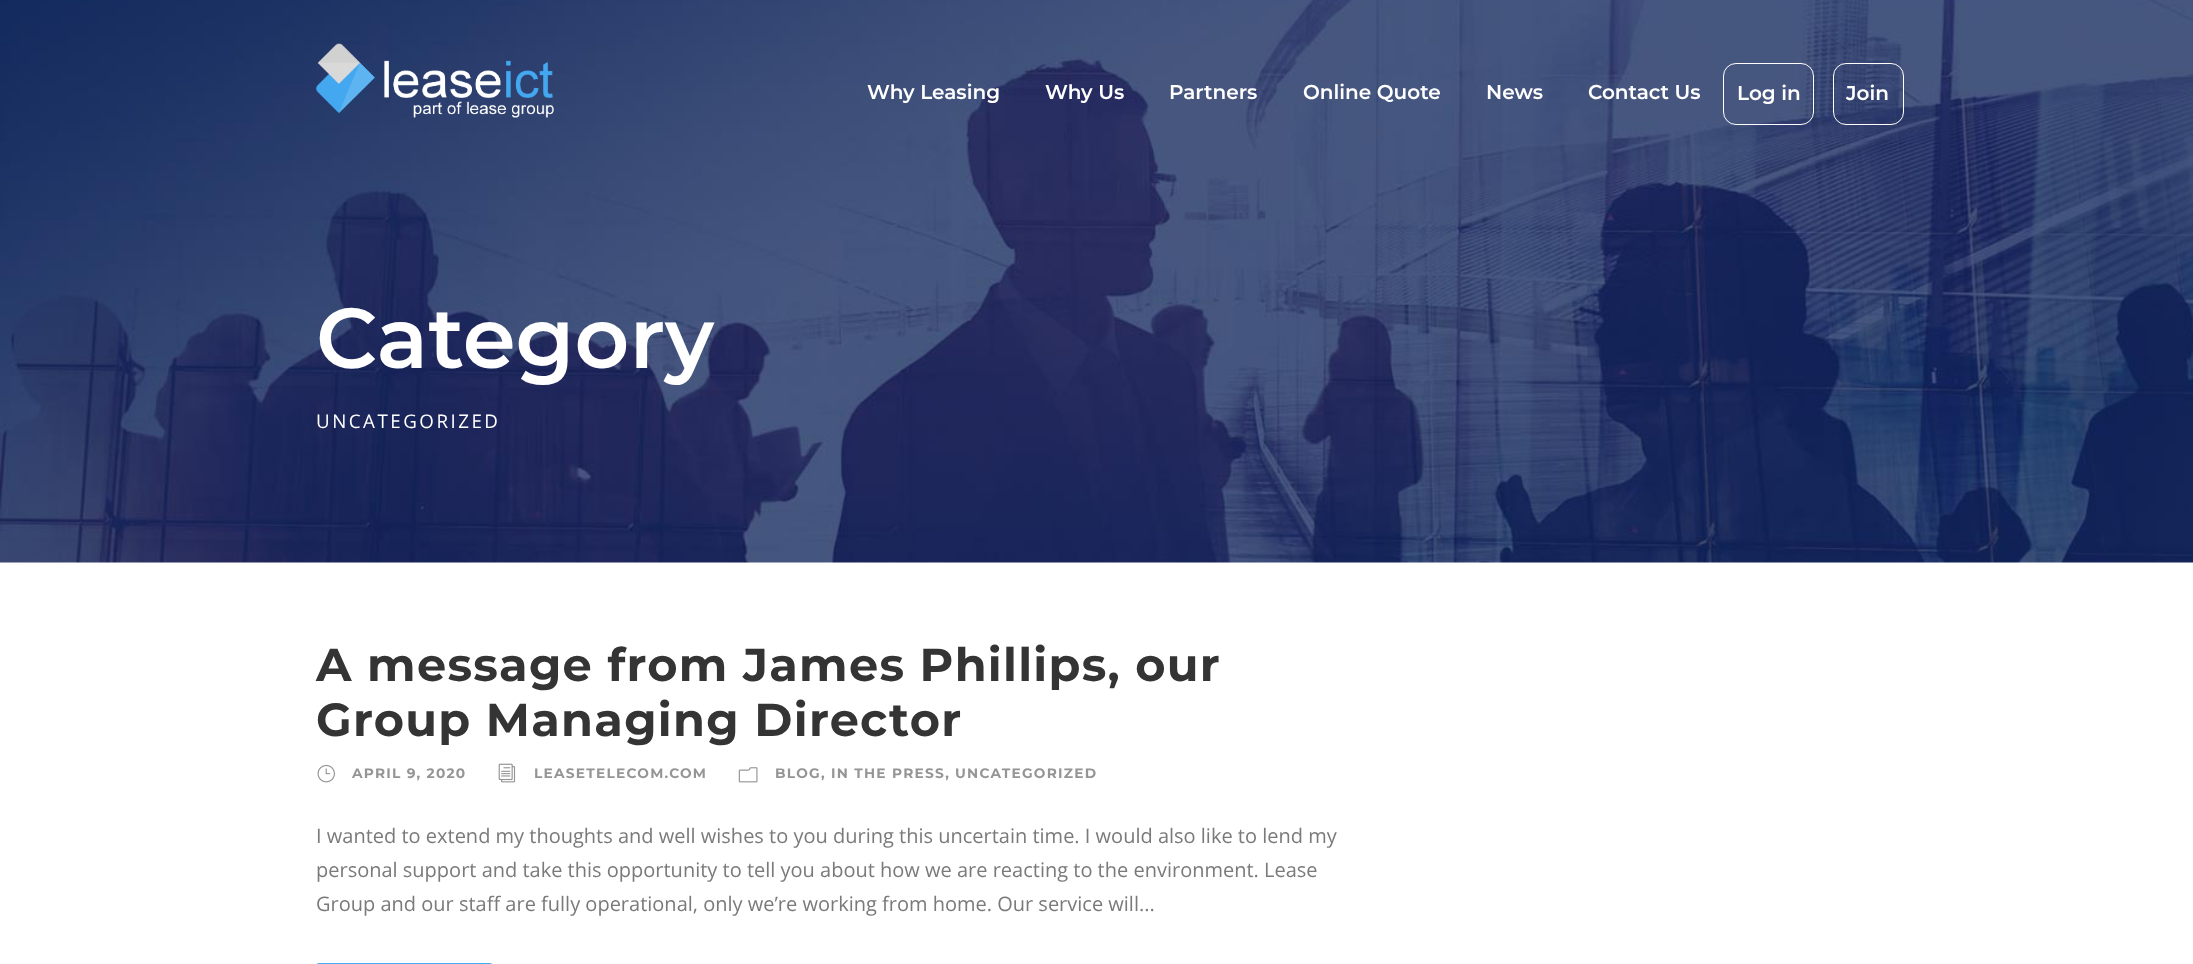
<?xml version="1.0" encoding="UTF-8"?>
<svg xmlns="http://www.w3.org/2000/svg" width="2193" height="964">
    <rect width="100%" height="100%" fill="#FFFFFF"/>
    <image x="0" y="0" width="2193" height="563" href="img_02.png"/>
    <image x="316" y="43" width="238" height="75" href="img_01.png"/>
    <text x="867" y="99" font-family="Montserrat" font-size="20" font-weight="600" fill="#FFFFFF">Why Leasing</text>
    <text x="1045" y="99" font-family="Montserrat" font-size="20" font-weight="600" fill="#FFFFFF">Why Us</text>
    <text x="1169" y="99" font-family="Montserrat" font-size="20" font-weight="600" fill="#FFFFFF">Partners</text>
    <text x="1303" y="99" font-family="Montserrat" font-size="20" font-weight="600" fill="#FFFFFF">Online Quote</text>
    <text x="1486" y="99" font-family="Montserrat" font-size="20" font-weight="600" fill="#FFFFFF">News</text>
    <text x="1588" y="99" font-family="Montserrat" font-size="20" font-weight="600" fill="#FFFFFF">Contact Us</text>
    <rect x="1723.5" y="63.5" width="90" height="61" rx="12.5" fill="none" stroke="#FFFFFF"/>
    <text x="1737" y="100" font-family="Montserrat" font-size="20" font-weight="600" fill="#FFFFFF">Log in</text>
    <rect x="1833.5" y="63.5" width="70" height="61" rx="12.5" fill="none" stroke="#FFFFFF"/>
    <text x="1846" y="100" font-family="Montserrat" font-size="20" font-weight="600" fill="#FFFFFF">Join</text>
    <text x="316" y="368" font-family="Montserrat" font-size="85" font-weight="600" fill="#FFFFFF">Category</text>
    <text x="316" y="428" font-family="Open Sans" font-size="18.75" letter-spacing="2.5" fill="#FFFFFF">UNCATEGORIZED</text>
    <text font-family="Montserrat" font-size="46.25" font-weight="700" letter-spacing="1.25" fill="#343434">
        <tspan x="316" y="681">A message from James Phillips, our</tspan>
        <tspan x="316" y="736">Group Managing Director</tspan>
    </text>
    <image x="317" y="764" width="18" height="19" href="img_03.png"/>
    <text x="352" y="778" font-family="Montserrat" font-size="13.75" font-weight="700" letter-spacing="1.25" fill="#959595">APRIL 9, 2020</text>
    <image x="498" y="763" width="18" height="20" href="img_04.png"/>
    <text x="534" y="778" font-family="Montserrat" font-size="13.75" font-weight="700" letter-spacing="1.25" fill="#959595">LEASETELECOM.COM</text>
    <image x="738" y="767" width="20" height="16" href="img_05.png"/>
    <text x="775" y="778" font-family="Montserrat" font-size="13.75" font-weight="700" letter-spacing="1.25" fill="#959595">BLOG, IN THE PRESS,</text>
    <text x="955" y="778" font-family="Montserrat" font-size="13.75" font-weight="700" letter-spacing="1.25" fill="#959595">UNCATEGORIZED</text>
    <text font-family="Open Sans" font-size="20" fill="#7A7A7A">
        <tspan x="316" y="843">I wanted to extend my thoughts and well wishes to you during this uncertain time. I would also like to lend my</tspan>
        <tspan x="316" y="877">personal support and take this opportunity to tell you about how we are reacting to the environment. Lease</tspan>
        <tspan x="316" y="911">Group and our staff are fully operational, only we’re working from home. Our service will...</tspan>
    </text>
    <rect x="316" y="963" width="177" height="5" rx="4" fill="#43A8EF"/>
</svg>
